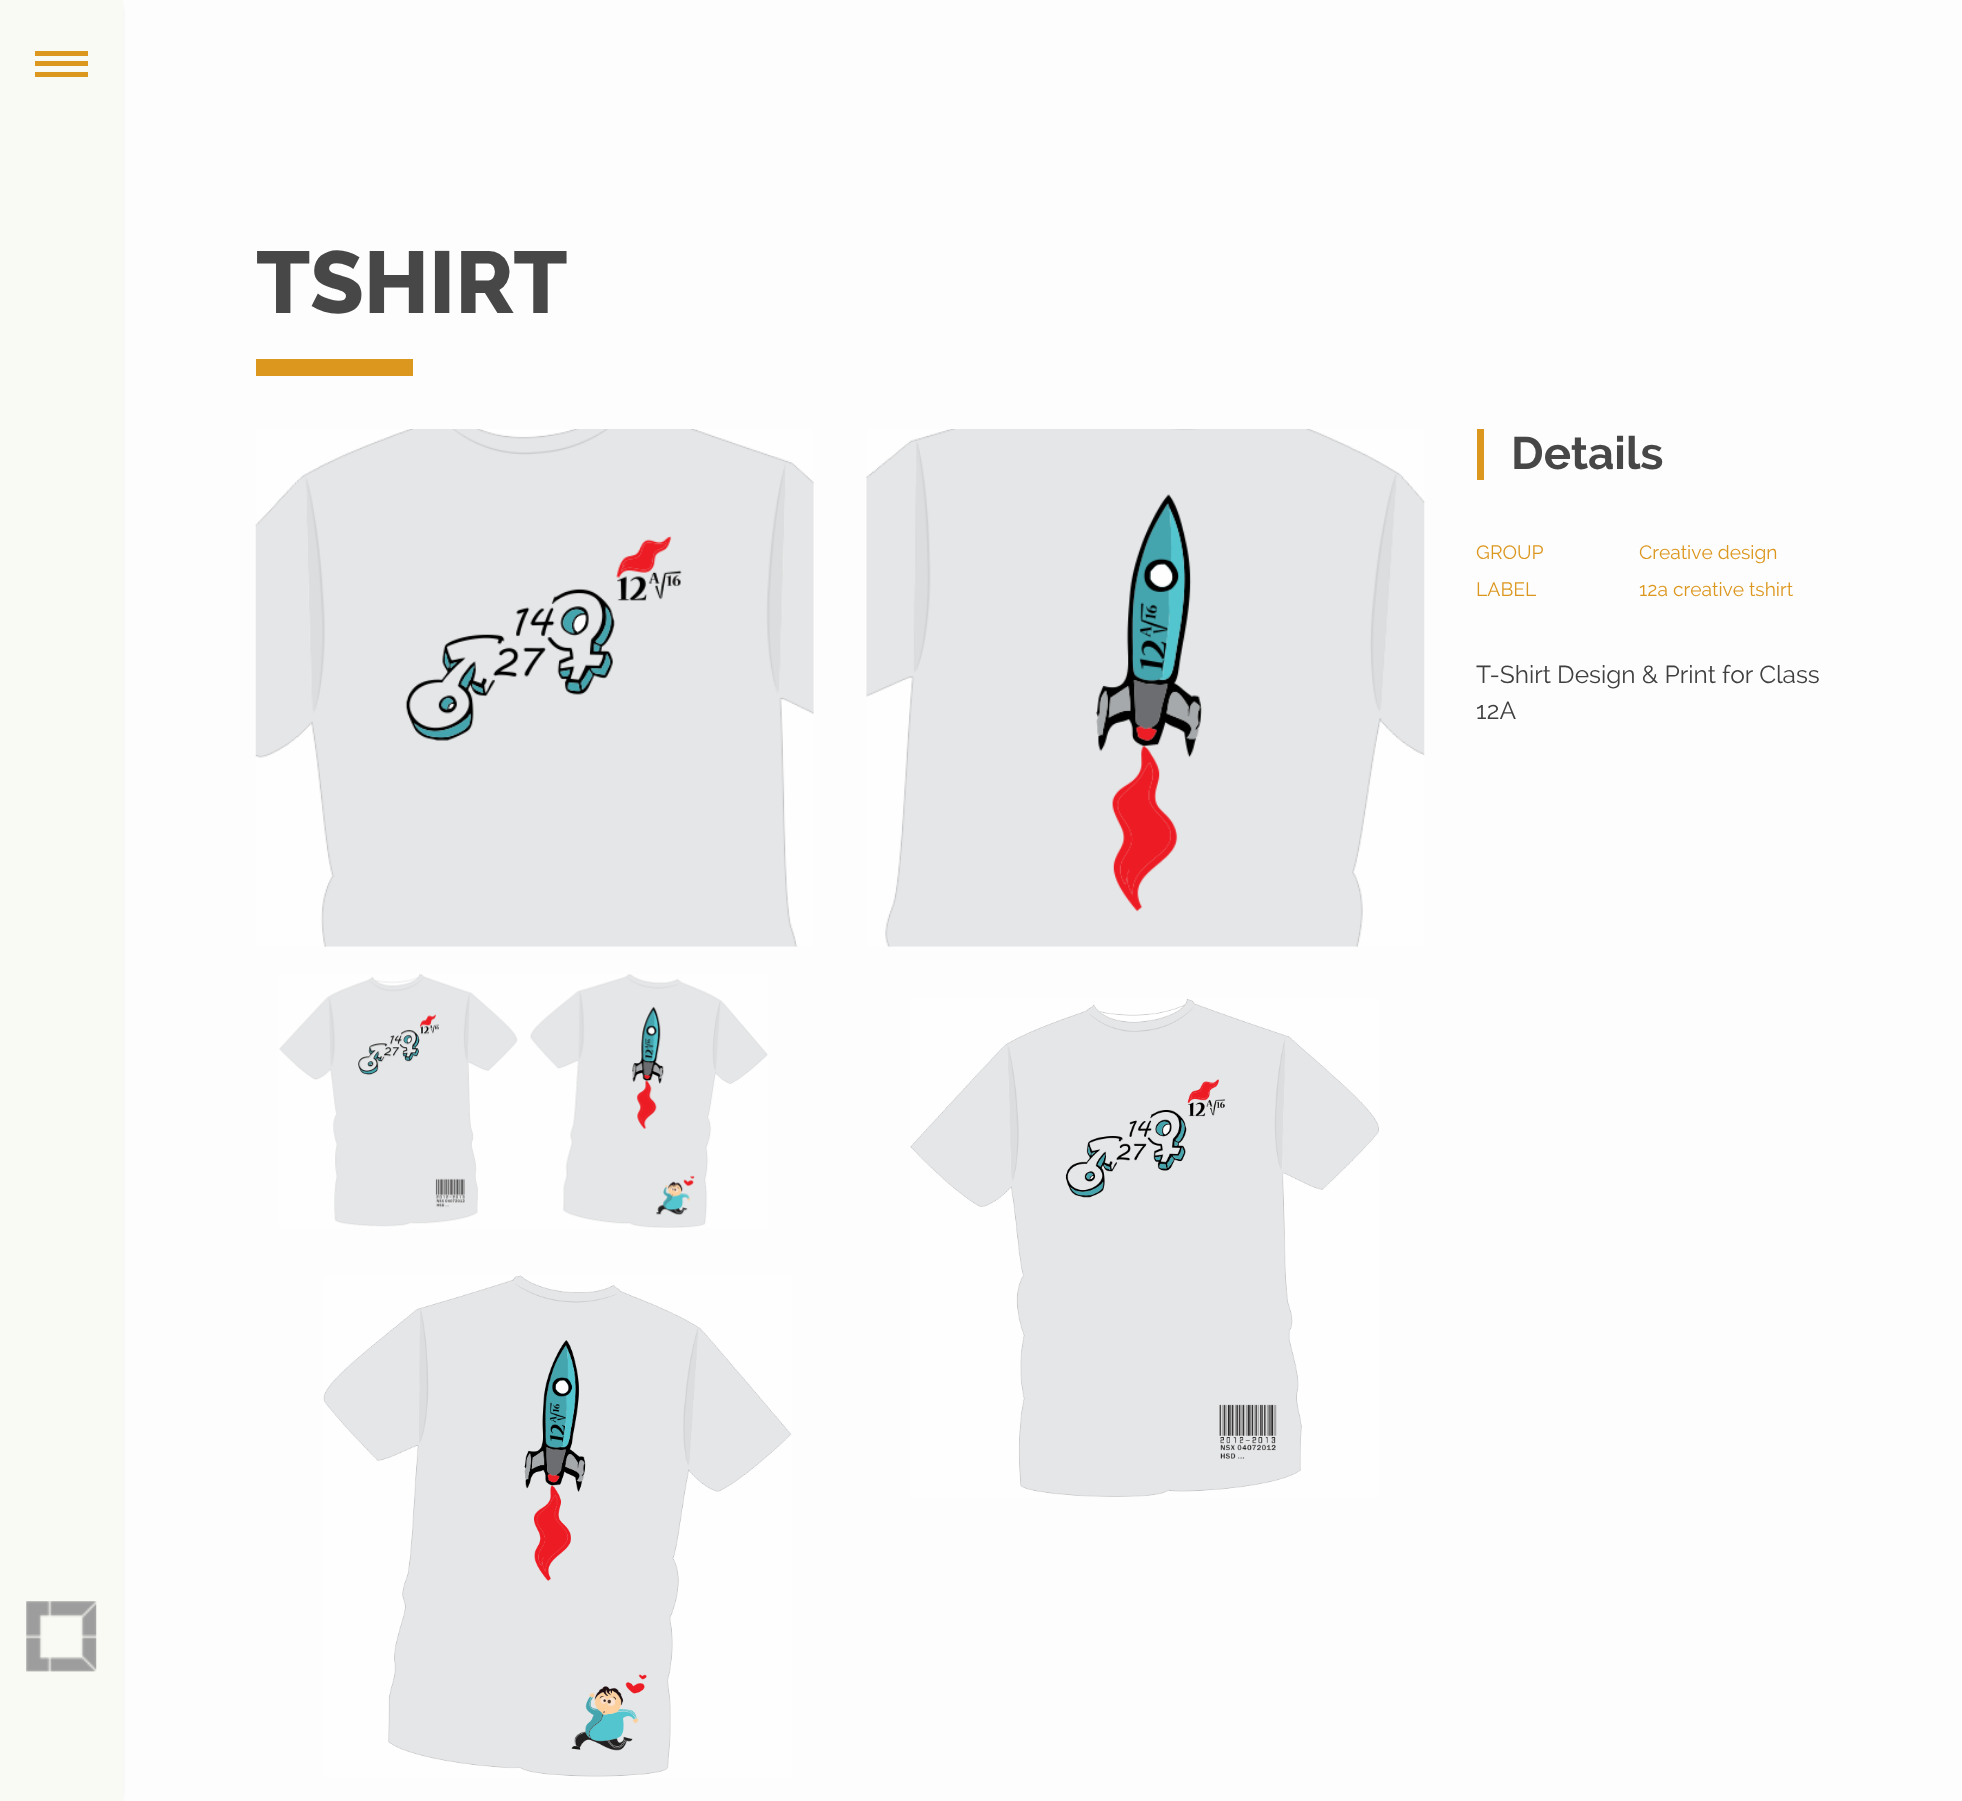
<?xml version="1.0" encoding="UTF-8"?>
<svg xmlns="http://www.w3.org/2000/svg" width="1962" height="1801">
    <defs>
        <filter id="blur1" x="-50%" y="-200%" width="200%" height="500%"><feGaussianBlur stdDeviation="3.5"/></filter>
    </defs>
    <rect width="100%" height="100%" fill="#FDFDFD"/>
    <rect x="9" y="7" width="108" height="1789" fill="#000000" filter="url(#blur1)"/>
    <rect x="0" y="0" width="123" height="1801" fill="#FAFAF5"/>
    <image x="26" y="1601" width="71" height="71" href="img_01.png"/>
    <rect x="35" y="61" width="53" height="5" fill="#DC971F"/>
    <rect x="35" y="51" width="53" height="5" fill="#DC971F"/>
    <rect x="35" y="72" width="53" height="5" fill="#DC971F"/>
    <text x="256" y="313" font-family="Raleway" font-size="87.5" font-weight="800" fill="#474747">TSHIRT</text>
    <rect x="256" y="359" width="157" height="17" fill="#DC971F"/>
    <image x="255" y="429" width="559" height="518" href="img_02.png"/>
    <image x="279" y="974" width="489" height="254" href="img_03.png"/>
    <image x="323" y="1275" width="469" height="502" href="img_04.png"/>
    <image x="866" y="429" width="559" height="518" href="img_05.png"/>
    <image x="910" y="999" width="469" height="498" href="img_06.png"/>
    <rect x="1477" y="429" width="7" height="51" fill="#DC971F"/>
    <text x="1511" y="469" font-family="Raleway" font-size="45.5" font-weight="700" fill="#474747">Details</text>
    <text x="1476" y="559" font-family="Raleway" font-size="19.25" fill="#DC971F">GROUP</text>
    <text x="1639" y="559" font-family="Raleway" font-size="19.25" fill="#DC971F">Creative design</text>
    <text x="1476" y="596" font-family="Raleway" font-size="19.25" fill="#DC971F">LABEL</text>
    <text x="1639" y="596" font-family="Raleway" font-size="19.25" fill="#DC971F">12a creative tshirt</text>
    <text font-family="Raleway" font-size="24.5" fill="#404040">
        <tspan x="1476" y="683">T-Shirt Design &amp; Print for Class</tspan>
        <tspan x="1476" y="719">12A</tspan>
    </text>
</svg>
